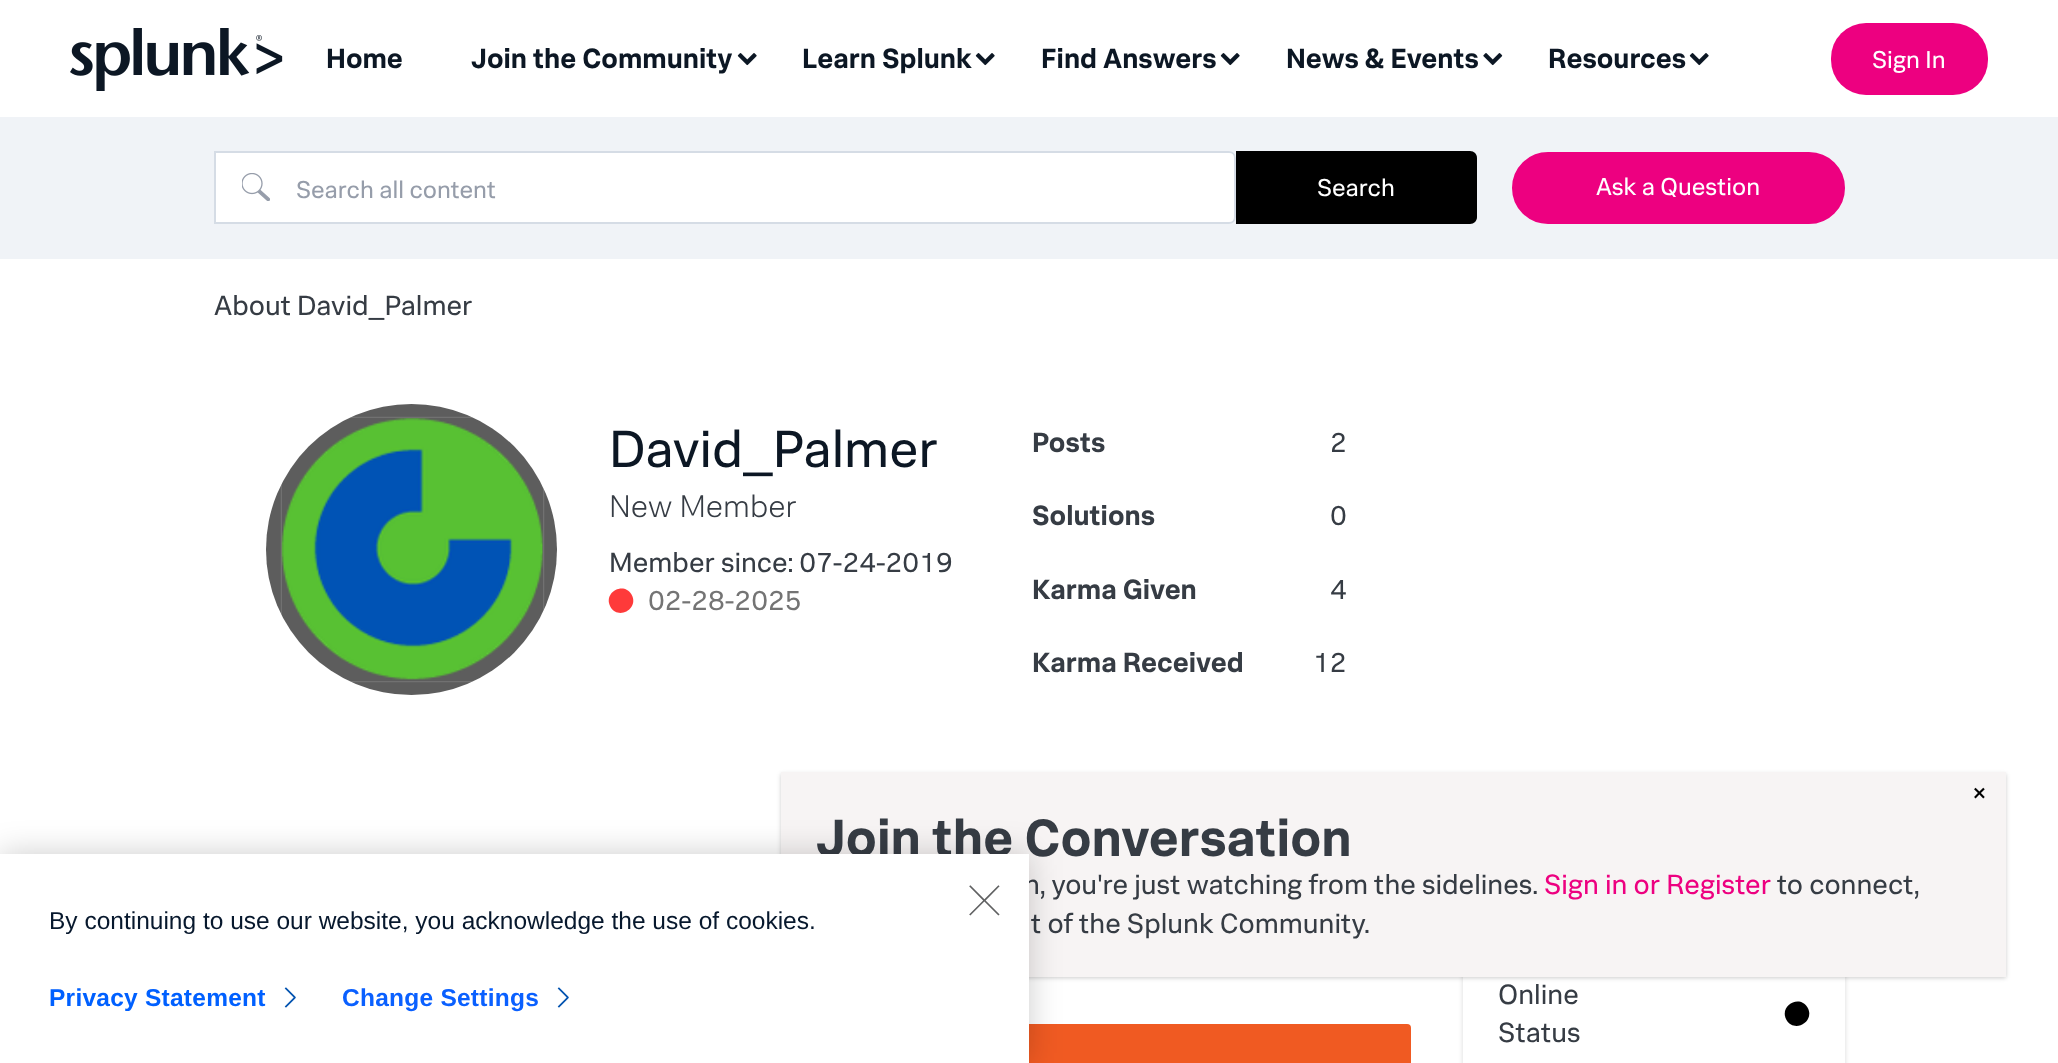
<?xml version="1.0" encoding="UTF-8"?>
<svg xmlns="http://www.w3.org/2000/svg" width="2058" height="1063">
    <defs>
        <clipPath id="clip1"><rect x="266" y="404" width="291" height="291" rx="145.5"/></clipPath>
        <clipPath id="clip2"><path d="M 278 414 H 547 V 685 H 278 Z M 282 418 H 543 V 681 H 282 Z" clip-rule="evenodd"/></clipPath>
        <filter id="blur1" x="-50%" y="-200%" width="200%" height="500%"><feGaussianBlur stdDeviation="1"/></filter>
        <filter id="blur2" x="-50%" y="-200%" width="200%" height="500%"><feGaussianBlur stdDeviation="2.5"/></filter>
        <filter id="blur3" x="-50%" y="-200%" width="200%" height="500%"><feGaussianBlur stdDeviation="2"/></filter>
        <filter id="blur4" x="-50%" y="-200%" width="200%" height="500%"><feGaussianBlur stdDeviation="16"/></filter>
    </defs>
    <rect width="100%" height="100%" fill="#FFFFFF"/>
    <image x="70" y="28" width="213" height="63" href="img_01.png"/>
    <text x="326" y="68" font-family="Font" font-size="28" font-weight="700" fill="#0C1724">Home</text>
    <text x="471" y="68" font-family="Font" font-size="28" font-weight="700" fill="#0C1724">Join the Community</text>
    <image x="737" y="53" width="20" height="13" href="img_02.png"/>
    <text x="802" y="68" font-family="Font" font-size="28" font-weight="700" fill="#0C1724">Learn Splunk</text>
    <image x="975" y="53" width="20" height="13" href="img_02.png"/>
    <text x="1041" y="68" font-family="Font" font-size="28" font-weight="700" fill="#0C1724">Find Answers</text>
    <image x="1220" y="53" width="20" height="13" href="img_02.png"/>
    <text x="1286" y="68" font-family="Font" font-size="28" font-weight="700" fill="#0C1724">News &amp; Events</text>
    <image x="1483" y="53" width="20" height="13" href="img_03.png"/>
    <text x="1548" y="68" font-family="Font" font-size="28" font-weight="700" fill="#0C1724">Resources</text>
    <image x="1689" y="53" width="20" height="13" href="img_02.png"/>
    <rect x="1831" y="23" width="157" height="72" rx="35" fill="#ED0080"/>
    <text x="1872" y="68" font-family="Font" font-size="24.5" fill="#FFFFFF">Sign In</text>
    <rect x="0" y="117" width="2058" height="142" fill="#F0F3F7"/>
    <path d="M 214 151 H 1229 C 1233 151 1236 154 1236 158 V 217 C 1236 221 1233 224 1229 224 H 214 Z" fill="#FFFFFF"/>
    <image x="242" y="173" width="28" height="28" href="img_04.png"/>
    <path d="M 215 152 H 1229 C 1232.5 152 1235 154.5 1235 158 V 217 C 1235 220.5 1232.5 223 1229 223 H 215 Z" fill="none" stroke="#D5DCE5" stroke-width="2"/>
    <text x="296" y="198" font-family="Font" font-size="24.5" fill="#969DAA">Search all content</text>
    <path d="M 1236 151 H 1470 C 1474 151 1477 154 1477 158 V 217 C 1477 221 1474 224 1470 224 H 1236 Z" fill="#000000"/>
    <text x="1317" y="196" font-family="Font" font-size="24.5" fill="#FFFFFF">Search</text>
    <rect x="1513" y="153" width="331" height="70" rx="35" fill="#ED0080" stroke="#ED0080" stroke-width="2"/>
    <text x="1596" y="195" font-family="Font" font-size="24.5" fill="#FFFFFF">Ask a Question</text>
    <text x="214" y="315" font-family="Font" font-size="28" fill="#363C44">About David_Palmer</text>
    <circle cx="411.5" cy="549.5" r="145.5" fill="#5D5D5D"/>
    <g clip-path="url(#clip1)">
        <g clip-path="url(#clip2)">
            <rect x="282" y="418" width="261" height="263" fill="#999999" filter="url(#blur1)"/>
        </g>
    </g>
    <image x="281" y="418" width="262" height="262" href="img_05.png"/>
    <text x="609" y="467" font-family="Font" font-size="52.5" fill="#0C1724">David_Palmer</text>
    <text x="609" y="517" font-family="Font" font-size="31.5" font-weight="300" fill="#363C44">New Member</text>
    <text x="609" y="572" font-family="Font" font-size="28" fill="#363C44">Member since: 07-24-2019</text>
    <path d="M 631.5 594.5 C 639.5 608.5 618.5 620.5 610.5 607 C 602.5 593 623.5 581 631.5 594.5 Z" fill="#FE3A3A"/>
    <text x="648" y="610" font-family="Font" font-size="28" fill="#747474">02-28-2025</text>
    <text x="1032" y="452" font-family="Font" font-size="28" font-weight="700" fill="#363C44">Posts</text>
    <text x="1330" y="452" font-family="Font" font-size="28" fill="#363C44">2</text>
    <text x="1032" y="525" font-family="Font" font-size="28" font-weight="700" fill="#363C44">Solutions</text>
    <text x="1330" y="525" font-family="Font" font-size="28" fill="#363C44">0</text>
    <text x="1032" y="599" font-family="Font" font-size="28" font-weight="700" fill="#363C44">Karma Given</text>
    <text x="1330" y="599" font-family="Font" font-size="28" fill="#363C44">4</text>
    <text x="1032" y="672" font-family="Font" font-size="28" font-weight="700" fill="#363C44">Karma Received</text>
    <text x="1313" y="672" font-family="Font" font-size="28" fill="#363C44">12</text>
    <rect x="1463" y="868" width="382" height="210" rx="7" fill="#000000" fill-opacity="0.15" filter="url(#blur2)"/>
    <rect x="1463" y="977" width="382" height="86" fill="#FFFFFF"/>
    <rect x="781" y="774" width="1225" height="204" fill="#000000" fill-opacity="0.2" filter="url(#blur3)"/>
    <rect x="781" y="772" width="1225" height="205" fill="#F7F4F4"/>
    <text x="1971" y="802" font-family="Font" font-size="28" fill="#000000">×</text>
    <text x="816" y="856" font-family="Font" font-size="52.5" font-weight="700" fill="#363C44">Join the Conversation</text>
    <text x="1024" y="894" font-family="Font" font-size="28" fill="#363C44">n, you're just watching from the sidelines.</text>
    <text x="1544" y="894" font-family="Font" font-size="28" fill="#ED0080">Sign in or Register</text>
    <text x="1777" y="894" font-family="Font" font-size="28" fill="#363C44">to connect,</text>
    <text x="1031" y="933" font-family="Font" font-size="28" fill="#363C44">t of the Splunk Community.</text>
    <rect x="214" y="1024" width="1197" height="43" rx="4" fill="#F05A22"/>
    <text font-family="Font" font-size="28" fill="#363C44">
        <tspan x="1498" y="1004">Online</tspan>
        <tspan x="1498" y="1042">Status</tspan>
    </text>
    <path d="M 1807.5 1007.5 C 1815.5 1021.5 1794.5 1033.5 1786.5 1020 C 1778.5 1006 1799.5 994 1807.5 1007.5 Z" fill="#000000"/>
    <rect x="0" y="854" width="1029" height="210" fill="#000000" fill-opacity="0.2" filter="url(#blur4)"/>
    <rect x="0" y="854" width="1029" height="209" fill="#FFFFFF"/>
    <image x="969" y="885" width="31" height="31" href="img_06.png"/>
    <text x="49" y="929" font-family="Liberation Sans" font-size="24.5" fill="#07182D">By continuing to use our website, you acknowledge the use of cookies.</text>
    <text x="49" y="1006" font-family="Liberation Sans" font-size="24.5" font-weight="700" letter-spacing="0.25" fill="#0060FF">Privacy Statement</text>
    <image x="284" y="987" width="12" height="21" href="img_07.png"/>
    <text x="342" y="1006" font-family="Liberation Sans" font-size="24.5" font-weight="700" letter-spacing="0.25" fill="#0A60FF">Change Settings</text>
    <image x="557" y="987" width="12" height="21" href="img_07.png"/>
</svg>
